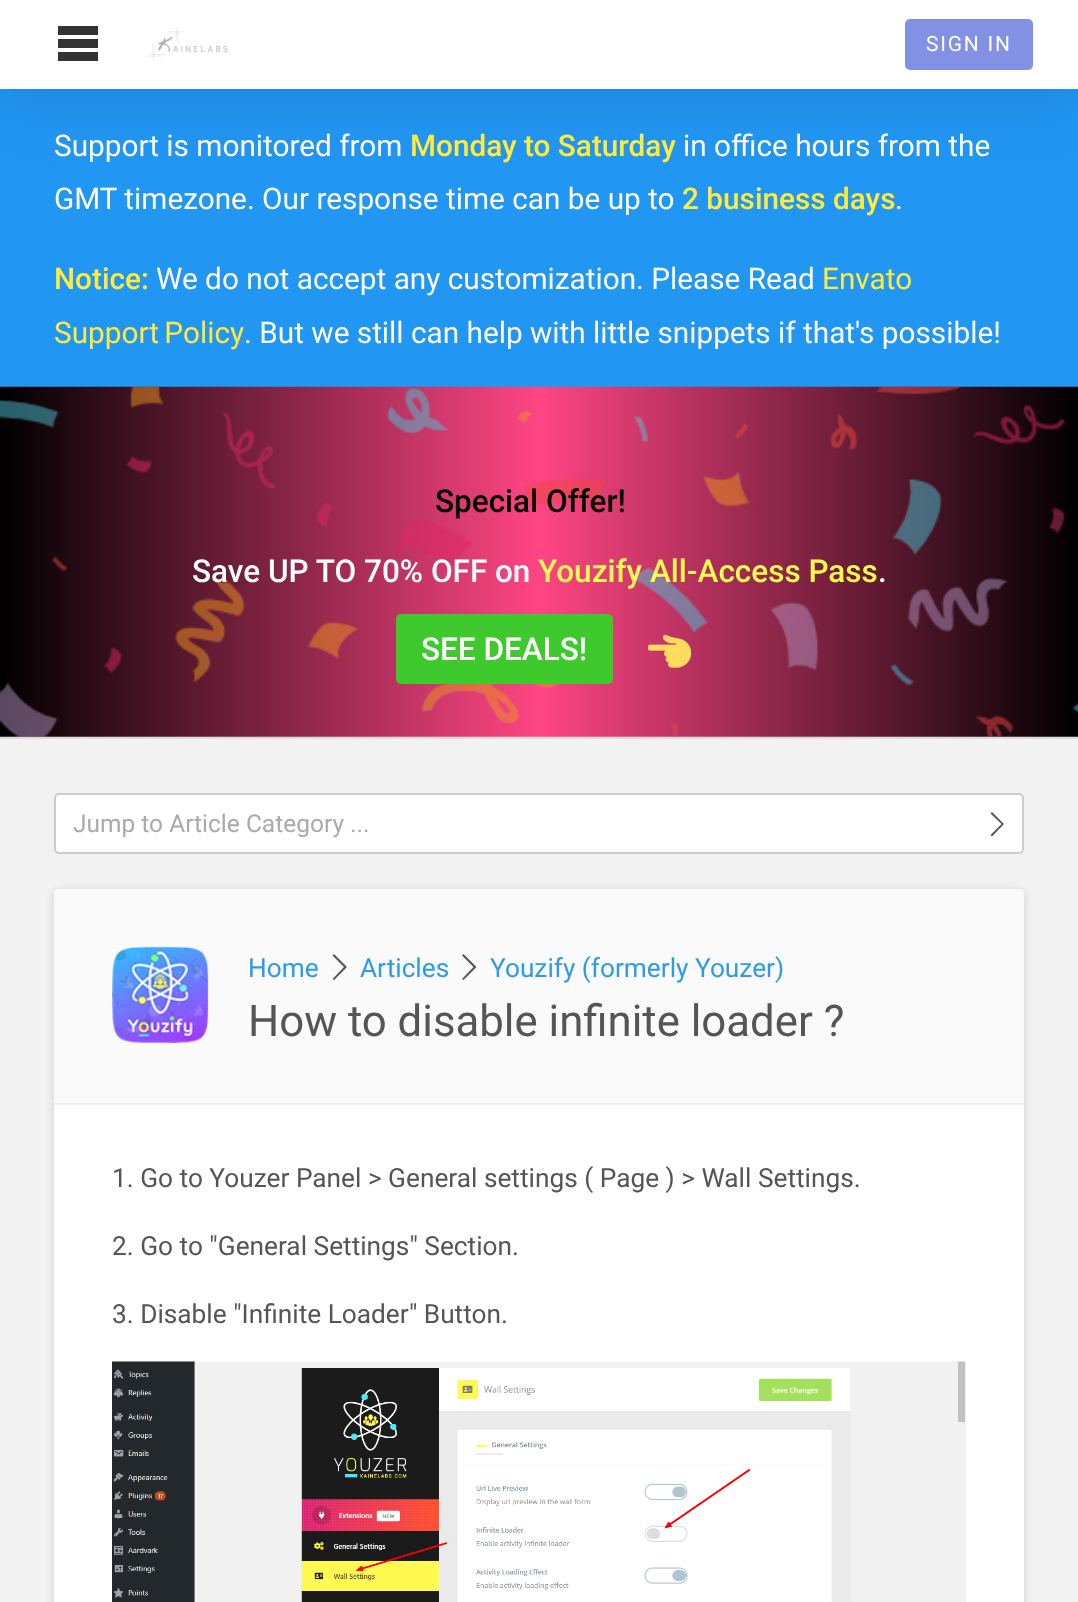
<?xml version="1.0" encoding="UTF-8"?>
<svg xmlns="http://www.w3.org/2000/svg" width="1078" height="1602">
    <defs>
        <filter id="blur1" x="-50%" y="-200%" width="200%" height="500%"><feGaussianBlur stdDeviation="35"/></filter>
        <filter id="blur2" x="-50%" y="-200%" width="200%" height="500%"><feGaussianBlur stdDeviation="4.5"/></filter>
    </defs>
    <rect width="100%" height="100%" fill="#F2F2F2"/>
    <rect x="0" y="89" width="1078" height="298" fill="#2196F3"/>
    <rect x="0" y="2" width="1078" height="89" fill="#000000" fill-opacity="0.15" filter="url(#blur1)"/>
    <rect x="0" y="0" width="1078" height="89" fill="#FFFFFF"/>
    <path d="M 58 26 H 98 V 35 H 58 Z M 58 39 H 98 V 48 H 58 Z M 58 52 H 98 V 61 H 58 Z" fill="#333333"/>
    <image x="147" y="26" width="81" height="35" href="img_01.png"/>
    <rect x="905" y="19" width="128" height="51" rx="5" fill="#8291E4"/>
    <text x="926" y="51" font-family="Roboto" font-size="21" letter-spacing="1.75" fill="#FFFFFF">SIGN IN</text>
    <text x="54" y="156" font-family="Roboto" font-size="29.75" fill="#FFFFFF">Support is monitored from</text>
    <text x="410" y="156" font-family="Roboto" font-size="29.75" font-weight="500" fill="#FFEB3B">Monday to Saturday</text>
    <text x="683" y="156" font-family="Roboto" font-size="29.75" fill="#FFFFFF">in office hours from the</text>
    <text x="54" y="209" font-family="Roboto" font-size="29.75" fill="#FFFFFF">GMT timezone. Our response time can be up to</text>
    <text x="682" y="209" font-family="Roboto" font-size="29.75" font-weight="500" fill="#FFEB3B">2 business days</text>
    <text x="895" y="209" font-family="Roboto" font-size="29.75" fill="#FFFFFF">.</text>
    <text x="54" y="289" font-family="Roboto" font-size="29.75" font-weight="500" fill="#FFEB3B">Notice:</text>
    <text x="156" y="289" font-family="Roboto" font-size="29.75" fill="#FFFFFF">We do not accept any customization. Please Read</text>
    <text x="822" y="289" font-family="Roboto" font-size="29.75" fill="#FFEB3B">Envato</text>
    <text x="54" y="343" word-spacing="-2" font-family="Roboto" font-size="29.75" fill="#FFEB3B">Support Policy</text>
    <text x="244" y="343" font-family="Roboto" font-size="29.75" fill="#FFFFFF">. But we still can help with little snippets if that's possible!</text>
    <image x="0" y="386" width="1078" height="351" href="img_02.png"/>
    <text x="435" y="512" font-family="Roboto" font-size="31.5" font-weight="500" fill="#000000">Special Offer!</text>
    <text x="192" y="582" font-family="Roboto" font-size="31.5" font-weight="500" fill="#FFFFFF">Save UP TO 70% OFF</text>
    <text x="495" y="582" font-family="Roboto" font-size="31.5" font-weight="500" fill="#FFFFFF">on</text>
    <text x="538" y="582" font-family="Roboto" font-size="31.5" font-weight="500" fill="#FFF952">Youzify All-Access Pass</text>
    <text x="878" y="582" font-family="Roboto" font-size="31.5" font-weight="500" fill="#FFFFFF">.</text>
    <rect x="396" y="614" width="217" height="70" rx="5" fill="#3ECA2D"/>
    <text x="421" y="660" font-family="Roboto" font-size="31.5" font-weight="500" fill="#FFFFFF">SEE DEALS!</text>
    <image x="648" y="634" width="43" height="34" href="img_03.png"/>
    <rect x="0" y="737" width="1078" height="2" fill="#DDDDDD"/>
    <rect x="55" y="794" width="968" height="59" rx="4" fill="#FFFFFF" stroke="#CCCCCC" stroke-width="2"/>
    <text x="73" y="832" font-family="Roboto" font-size="24.5" fill="#AAAAAA">Jump to Article Category ...</text>
    <path d="M 992 812 L 1004 824 L 992 836.5 L 990.5 835 L 1001.5 824 L 990.5 813.5 Z" fill="#555555"/>
    <rect x="54" y="891" width="970" height="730" rx="5" fill="#000000" fill-opacity="0.15" filter="url(#blur2)"/>
    <rect x="54" y="889" width="970" height="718" rx="5" fill="#FFFFFF"/>
    <path d="M 59 889 H 1019 C 1022 889 1024 891 1024 894 V 1104 H 54 V 894 C 54 891 56 889 59 889 Z" fill="#FAFAFA"/>
    <rect x="54" y="1103" width="970" height="2" fill="#EEEEEE"/>
    <image x="112" y="946" width="97" height="97" href="img_04.png"/>
    <text x="248" y="977" font-family="Roboto" font-size="26.25" fill="#2E9AE9">Home</text>
    <path d="M 334 954 L 347 967 L 334 980 L 332.5 979 L 344 967 L 332.5 955.5 Z" fill="#555555"/>
    <text x="360" y="977" font-family="Roboto" font-size="26.25" fill="#2E9AE9">Articles</text>
    <path d="M 463.5 954 L 476.5 967 L 463.5 980 L 462 979 L 473.5 967 L 462 955.5 Z" fill="#555555"/>
    <text x="490" y="977" font-family="Roboto" font-size="26.25" fill="#2E9AE9">Youzify (formerly Youzer)</text>
    <text x="248" y="1036" font-family="Roboto" font-size="43.75" fill="#555555">How to disable infinite loader ?</text>
    <text x="112" y="1187" font-family="Roboto" font-size="26.25" fill="#555555">1. Go to Youzer Panel &gt; General settings ( Page ) &gt; Wall Settings.</text>
    <text x="112" y="1255" font-family="Roboto" font-size="26.25" fill="#555555">2. Go to "General Settings" Section.</text>
    <text x="112" y="1323" font-family="Roboto" font-size="26.25" fill="#555555">3. Disable "Infinite Loader" Button.</text>
    <image x="112" y="1361" width="854" height="241" href="img_05.png"/>
</svg>
